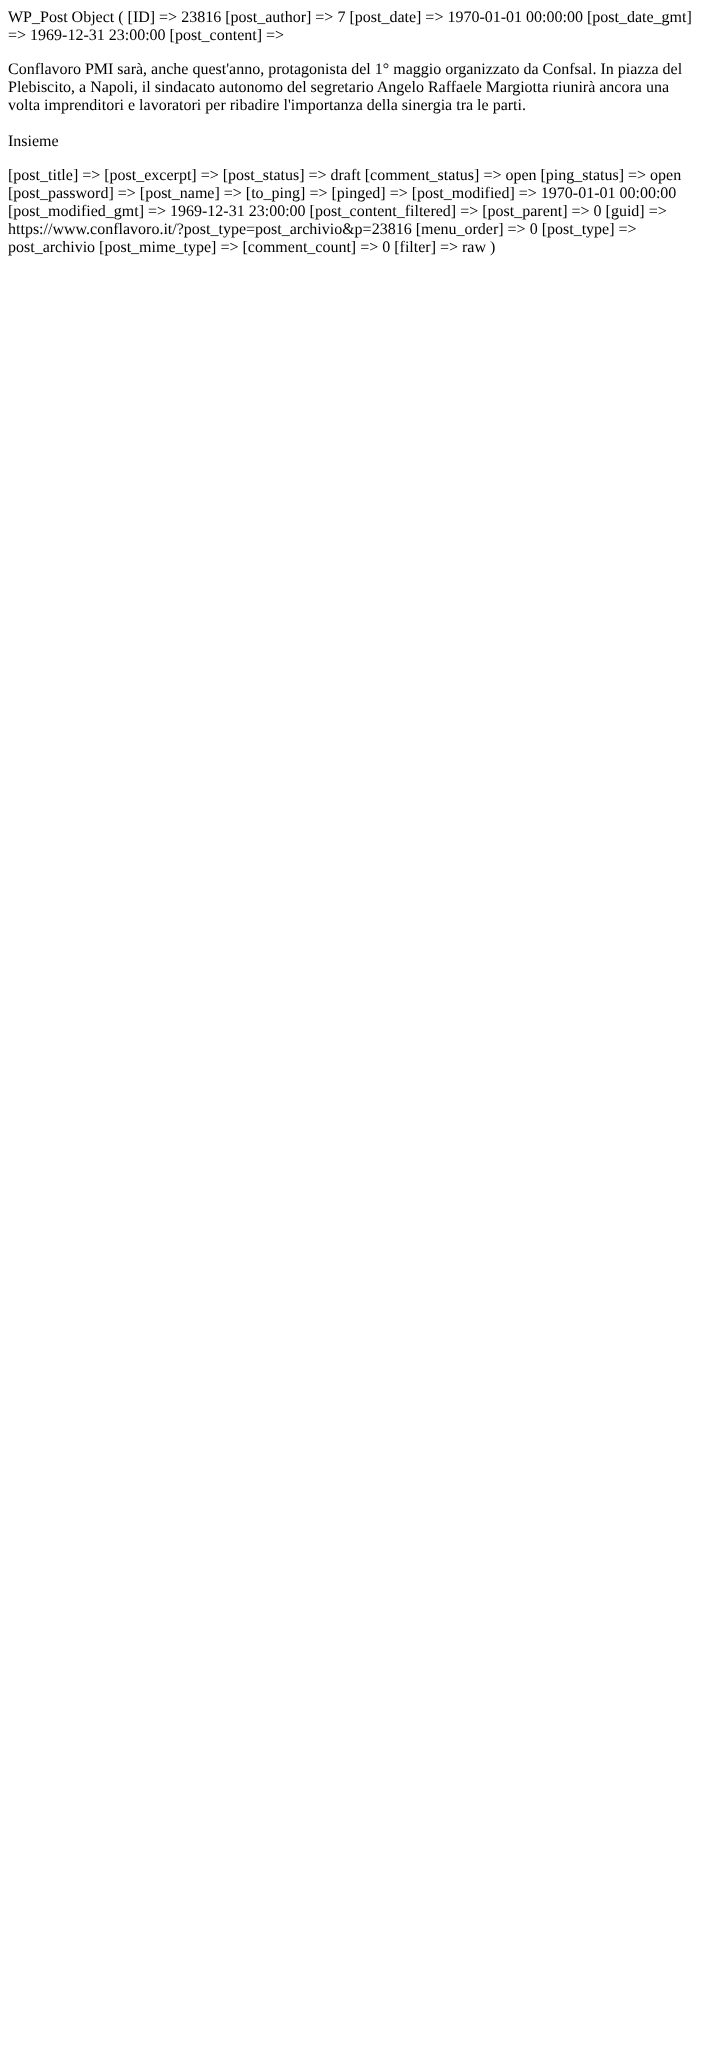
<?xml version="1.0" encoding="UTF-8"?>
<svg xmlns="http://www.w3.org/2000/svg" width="704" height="2072">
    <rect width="100%" height="100%" fill="#FFFFFF"/>
    <text font-family="Liberation Serif" font-size="16" fill="#000000">
        <tspan x="8" y="22">WP_Post Object ( [ID] =&gt; 23816 [post_author] =&gt; 7 [post_date] =&gt; 1970-01-01 00:00:00 [post_date_gmt]</tspan>
        <tspan x="8" y="40">=&gt; 1969-12-31 23:00:00 [post_content] =&gt;</tspan>
    </text>
    <text font-family="Liberation Serif" font-size="16" fill="#000000">
        <tspan x="8" y="74">Conflavoro PMI sarà, anche quest'anno, protagonista del 1° maggio organizzato da Confsal. In piazza del</tspan>
        <tspan x="8" y="92">Plebiscito, a Napoli, il sindacato autonomo del segretario Angelo Raffaele Margiotta riunirà ancora una</tspan>
        <tspan x="8" y="110">volta imprenditori e lavoratori per ribadire l'importanza della sinergia tra le parti.</tspan>
    </text>
    <text x="8" y="146" font-family="Liberation Serif" font-size="16" fill="#000000">Insieme</text>
    <text font-family="Liberation Serif" font-size="16" fill="#000000">
        <tspan x="8" y="180">[post_title] =&gt; [post_excerpt] =&gt; [post_status] =&gt; draft [comment_status] =&gt; open [ping_status] =&gt; open</tspan>
        <tspan x="8" y="198">[post_password] =&gt; [post_name] =&gt; [to_ping] =&gt; [pinged] =&gt; [post_modified] =&gt; 1970-01-01 00:00:00</tspan>
        <tspan x="8" y="216">[post_modified_gmt] =&gt; 1969-12-31 23:00:00 [post_content_filtered] =&gt; [post_parent] =&gt; 0 [guid] =&gt;</tspan>
        <tspan x="8" y="234">https://www.conflavoro.it/?post_type=post_archivio&amp;p=23816 [menu_order] =&gt; 0 [post_type] =&gt;</tspan>
        <tspan x="8" y="252">post_archivio [post_mime_type] =&gt; [comment_count] =&gt; 0 [filter] =&gt; raw )</tspan>
    </text>
</svg>
